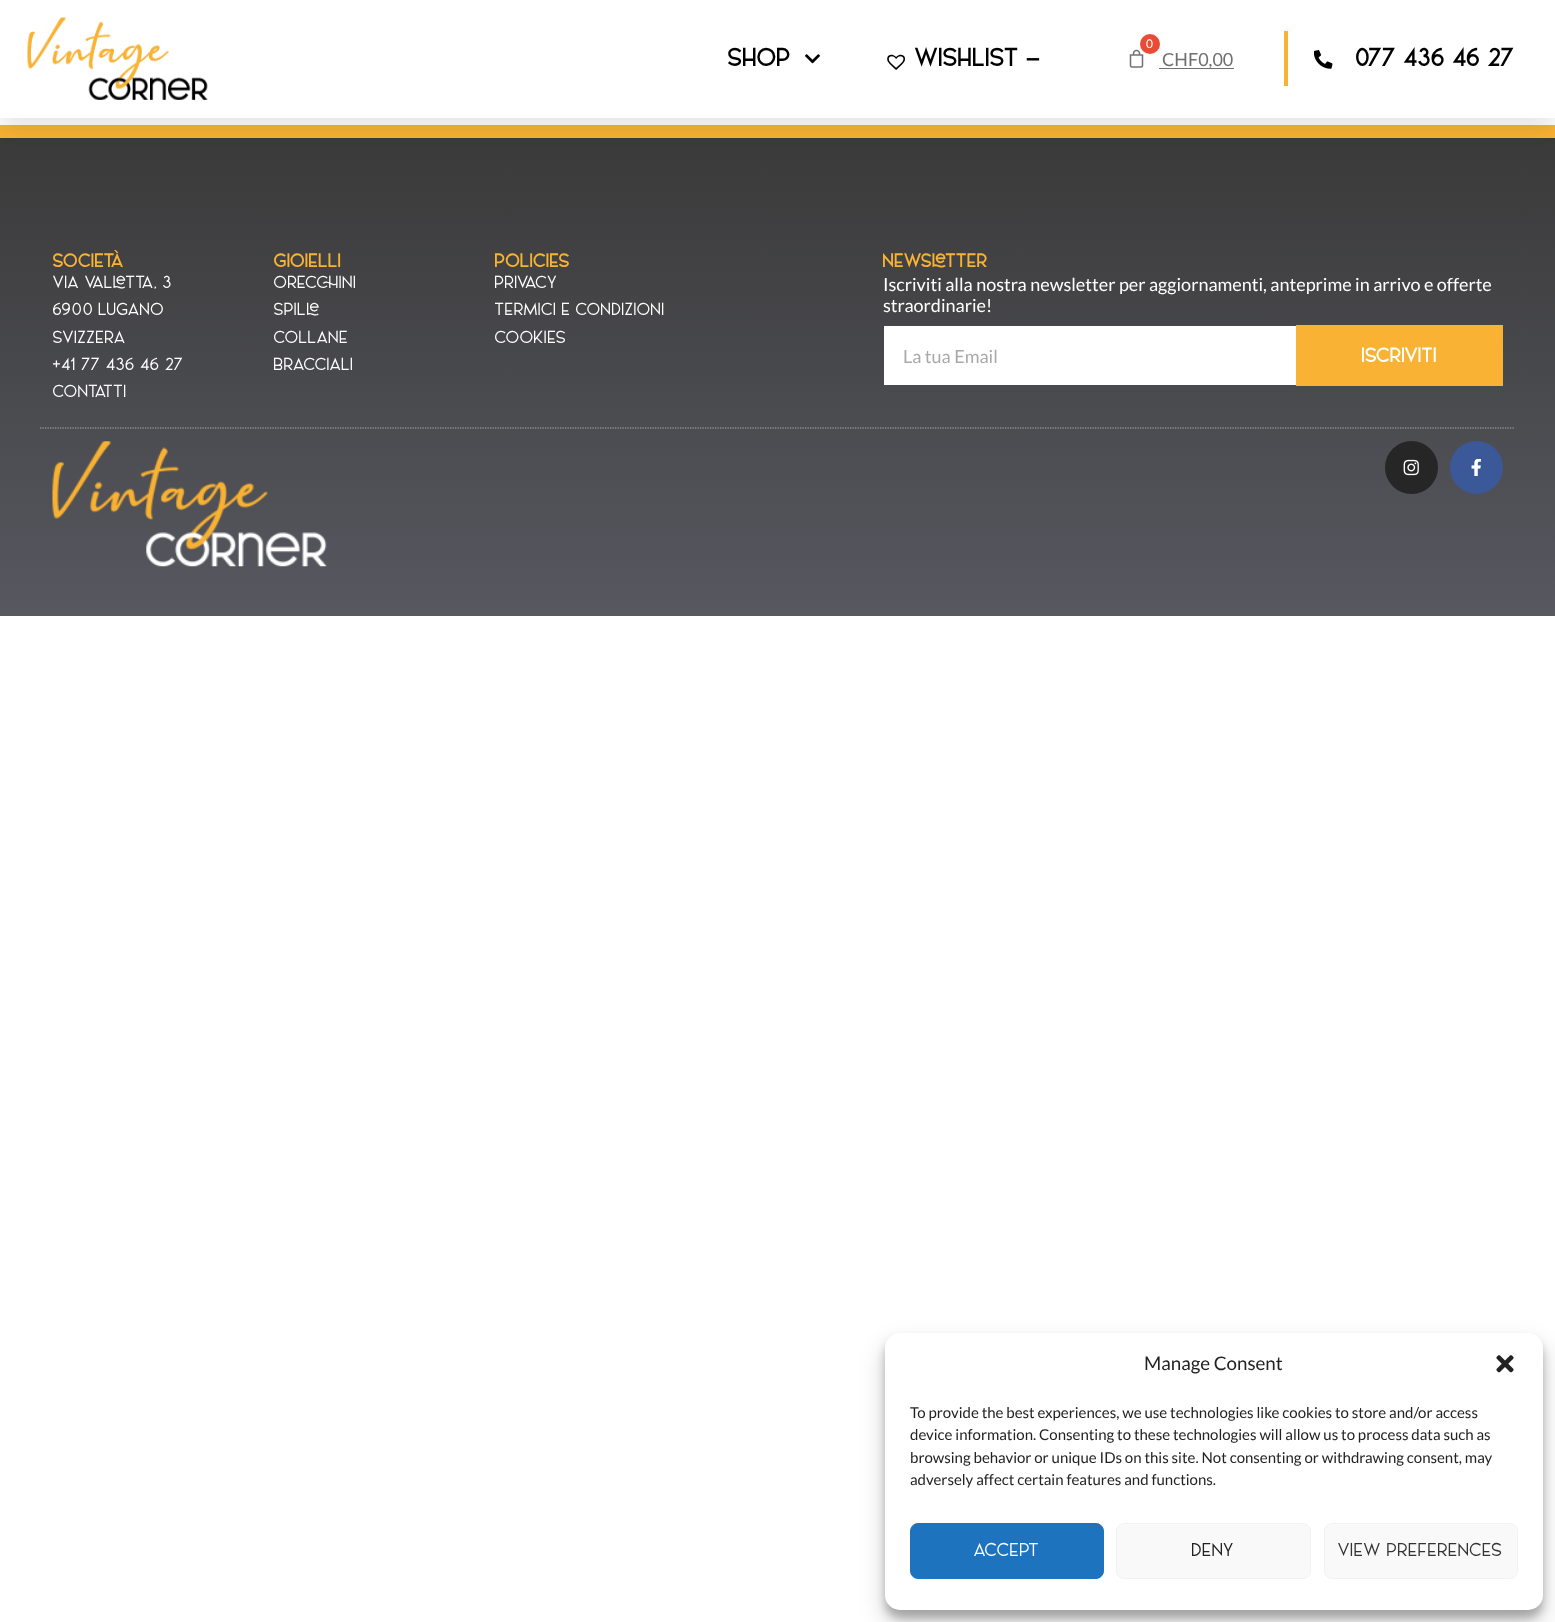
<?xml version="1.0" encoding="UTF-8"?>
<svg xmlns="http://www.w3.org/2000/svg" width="1555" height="1622">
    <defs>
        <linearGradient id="g1" gradientUnits="userSpaceOnUse" x1="778" y1="616" x2="778" y2="137"><stop offset="0" stop-color="#575860"/><stop offset="1" stop-color="#3A3A3A"/></linearGradient>
        <filter id="blur1" x="-50%" y="-200%" width="200%" height="500%"><feGaussianBlur stdDeviation="12.5"/></filter>
        <filter id="blur2" x="-50%" y="-200%" width="200%" height="500%"><feGaussianBlur stdDeviation="4"/></filter>
    </defs>
    <rect width="100%" height="100%" fill="#FFFFFF"/>
    <rect x="0" y="138" width="1555" height="478" fill="url(#g1)"/>
    <rect x="0" y="125" width="1555" height="13" fill="#F9B233"/>
    <rect x="0" y="13" width="1555" height="117" fill="#000000" fill-opacity="0.1" filter="url(#blur1)"/>
    <rect x="0" y="0" width="1555" height="118" fill="#FFFFFF"/>
    <image x="27" y="17" width="181" height="83" href="img_01.png"/>
    <text x="728" y="66" font-family="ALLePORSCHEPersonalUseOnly" font-size="25" font-weight="700" fill="#000000">Shop</text>
    <image x="805" y="54" width="15" height="10" href="img_02.png"/>
    <image x="887" y="54" width="18" height="16" href="img_03.png"/>
    <text x="915" y="66" font-family="ALLePORSCHEPersonalUseOnly" font-size="25" font-weight="700" fill="#000000">Wishlist</text>
    <text x="1026" y="66" font-family="Liberation Sans" font-size="25" font-weight="700" fill="#000000">–</text>
    <image x="1129" y="49" width="15" height="19" href="img_04.png"/>
    <circle cx="1150" cy="44" r="10" fill="#E94B35"/>
    <text x="1146" y="48" font-family="Lato" font-size="12" fill="#FFFFFF">0</text>
    <rect x="1159" y="68" width="75" height="1" fill="#707070"/>
    <text x="1162" y="66" font-family="Lato" font-size="18" fill="#707070">CHF0,00</text>
    <rect x="1284" y="31" width="4" height="55" fill="#F9B233"/>
    <image x="1314" y="50" width="19" height="19" href="img_05.png"/>
    <text x="1356" y="66" font-family="ALLePORSCHEPersonalUseOnly" font-size="25" font-weight="700" fill="#000000">077 436 46 27</text>
    <text x="53" y="267" font-family="ALLePORSCHEPersonalUseOnly" font-size="18.75" font-weight="700" fill="#F9B233">SOCIETÀ</text>
    <text font-family="ALLePORSCHEPersonalUseOnly" font-size="17.5" fill="#FFFFFF">
        <tspan x="53" y="288">VIA VALLETTA, 3</tspan>
        <tspan x="53" y="315">6900 LUGANO</tspan>
        <tspan x="53" y="343">SVIZZERA</tspan>
        <tspan x="53" y="370">+41 77 436 46 27</tspan>
        <tspan x="53" y="397">CONTATTI</tspan>
    </text>
    <text x="274" y="267" font-family="ALLePORSCHEPersonalUseOnly" font-size="18.75" font-weight="700" fill="#F9B233">GIOIELLI</text>
    <text font-family="ALLePORSCHEPersonalUseOnly" font-size="17.5" fill="#FFFFFF">
        <tspan x="274" y="288">ORECCHINI</tspan>
        <tspan x="274" y="315">SPILLE</tspan>
        <tspan x="274" y="343">COLLANE</tspan>
        <tspan x="274" y="370">BRACCIALI</tspan>
    </text>
    <text x="495" y="267" font-family="ALLePORSCHEPersonalUseOnly" font-size="18.75" font-weight="700" fill="#F9B233">POLICIES</text>
    <text font-family="ALLePORSCHEPersonalUseOnly" font-size="17.5" fill="#FFFFFF">
        <tspan x="495" y="288">PRIVACY</tspan>
        <tspan x="495" y="315">TERMICI E CONDIZIONI</tspan>
        <tspan x="495" y="343">COOKIES</tspan>
    </text>
    <text x="883" y="267" font-family="ALLePORSCHEPersonalUseOnly" font-size="18.75" font-weight="700" fill="#F9B233">NEWSLETTER</text>
    <text font-family="Lato" font-size="18" fill="#FFFFFF">
        <tspan x="883" y="291">Iscriviti alla nostra newsletter per aggiornamenti, anteprime in arrivo e offerte</tspan>
        <tspan x="883" y="312">straordinarie!</tspan>
    </text>
    <rect x="884" y="326" width="412" height="59" fill="#FFFFFF"/>
    <text x="903" y="363" font-family="Lato" font-size="18" fill="#A9A9A9">La tua Email</text>
    <rect x="1296" y="325" width="207" height="61" fill="#F9B233"/>
    <text x="1362" y="362" font-family="ALLePORSCHEPersonalUseOnly" font-size="20" font-weight="700" fill="#FFFFFF">ISCRIVITI</text>
    <path d="M 40 428 H 1515" fill="none" stroke="#B0B0B2" stroke-width="1.2" stroke-dasharray="1.25 1.25"/>
    <image x="52" y="441" width="275" height="126" href="img_06.png"/>
    <circle cx="1411.5" cy="467.5" r="26.5" fill="#262626"/>
    <image x="1403" y="459" width="16" height="17" href="img_07.png"/>
    <circle cx="1476.5" cy="467.5" r="26.5" fill="#3B5998"/>
    <image x="1471" y="459" width="10" height="17" href="img_08.png"/>
    <rect x="885" y="1340" width="658" height="278" rx="15" fill="#000000" fill-opacity="0.23" filter="url(#blur2)"/>
    <rect x="885" y="1345" width="658" height="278" rx="15" fill="#000000" fill-opacity="0.19" filter="url(#blur1)"/>
    <rect x="885" y="1333" width="658" height="277" rx="15" fill="#FFFFFF"/>
    <text x="1144" y="1370" font-family="Lato" font-size="18.75" fill="#222222">Manage Consent</text>
    <image x="1496" y="1355" width="18" height="18" href="img_09.png"/>
    <text font-family="Lato" font-size="15" fill="#222222">
        <tspan x="910" y="1418">To provide the best experiences, we use technologies like cookies to store and/or access</tspan>
        <tspan x="910" y="1440">device information. Consenting to these technologies will allow us to process data such as</tspan>
        <tspan x="910" y="1463">browsing behavior or unique IDs on this site. Not consenting or withdrawing consent, may</tspan>
        <tspan x="910" y="1485">adversely affect certain features and functions.</tspan>
    </text>
    <rect x="910.5" y="1523.5" width="193" height="55" rx="7.5" fill="#1E73BE" stroke="#1E73BE"/>
    <text x="974" y="1556" font-family="ALLePORSCHEPersonalUseOnly" font-size="18.75" fill="#FFFFFF">ACCEPT</text>
    <rect x="1116.5" y="1523.5" width="194" height="55" rx="7.5" fill="#F9F9F9" stroke="#F2F2F2"/>
    <text x="1192" y="1556" font-family="ALLePORSCHEPersonalUseOnly" font-size="18.75" fill="#222222">DENY</text>
    <rect x="1324.5" y="1523.5" width="193" height="55" rx="7.5" fill="#F9F9F9" stroke="#F2F2F2"/>
    <text x="1338" y="1556" font-family="ALLePORSCHEPersonalUseOnly" font-size="18.75" fill="#333333">VIEW PREFERENCES</text>
</svg>
